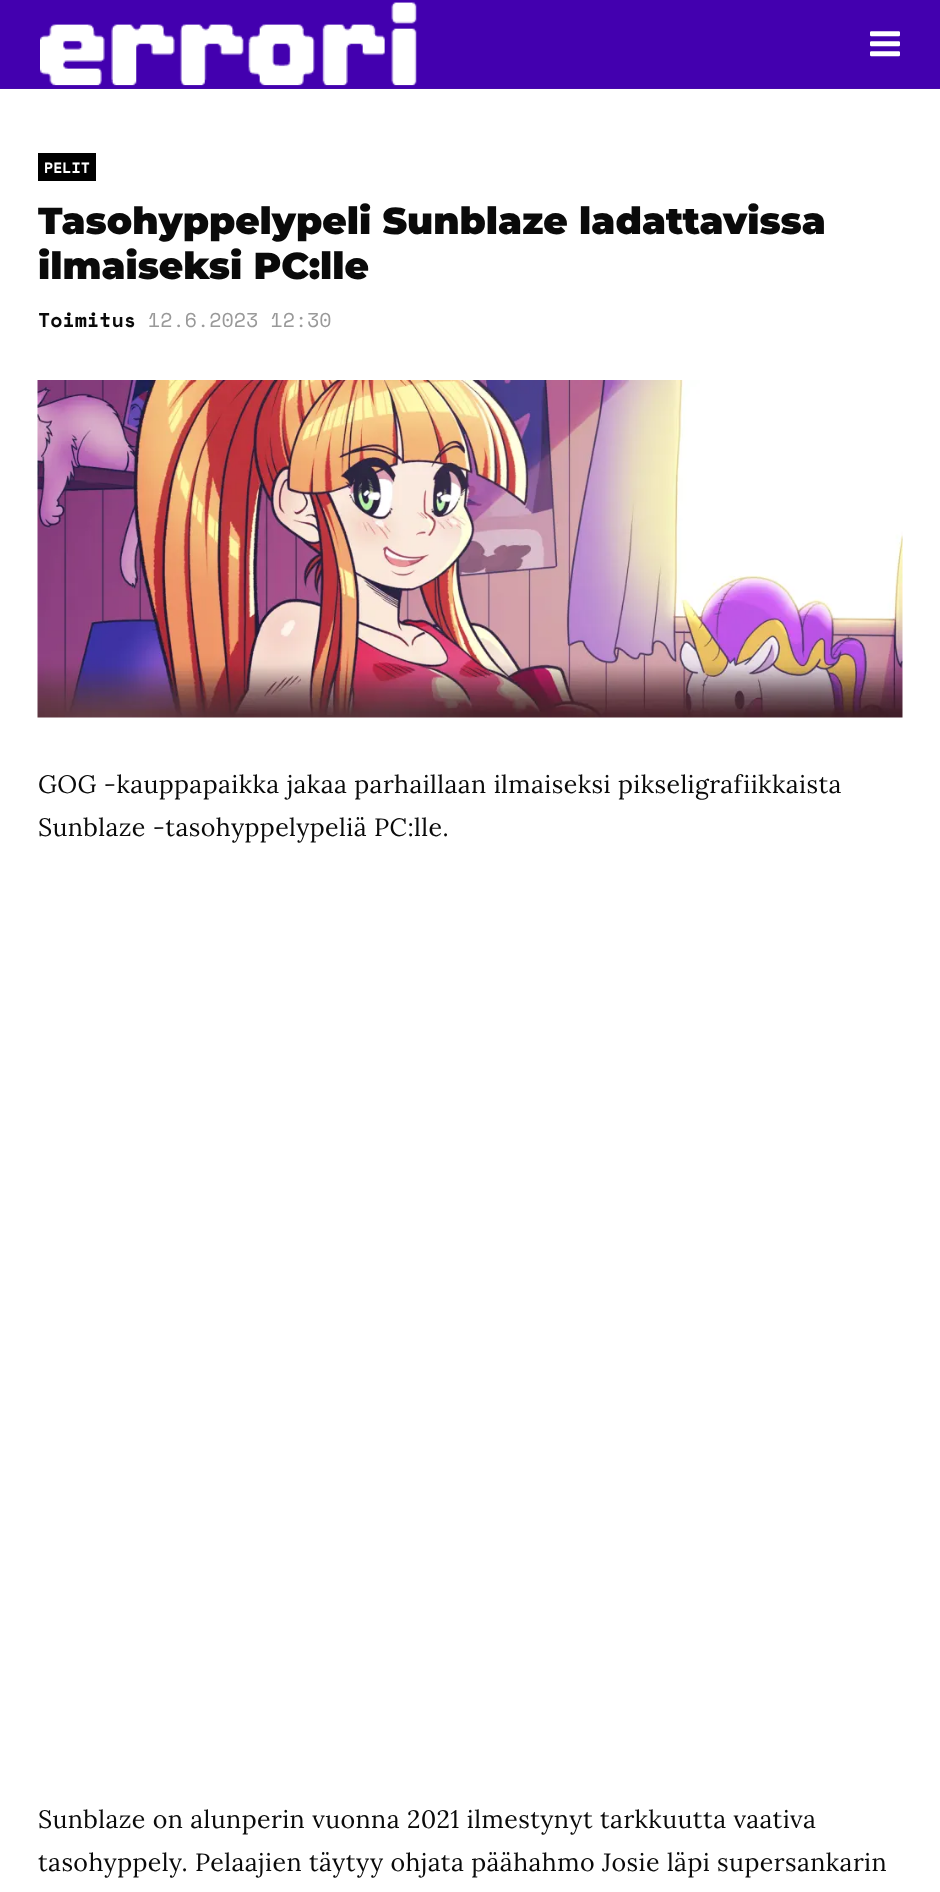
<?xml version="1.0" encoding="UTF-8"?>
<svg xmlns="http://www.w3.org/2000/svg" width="940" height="1892">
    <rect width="100%" height="100%" fill="#FFFFFF"/>
    <rect x="0" y="0" width="940" height="88" fill="#4300AF"/>
    <rect x="0" y="88" width="940" height="1" fill="#460AA8"/>
    <image x="40" y="2" width="377" height="84" href="img_01.png"/>
    <image x="870" y="31" width="30" height="26" href="img_02.png"/>
    <rect x="38" y="153" width="58" height="28" fill="#000000"/>
    <text x="44" y="173" font-family="Space Mono" font-size="15" font-weight="700" fill="#FFFFFF">PELIT</text>
    <text font-family="Montserrat" font-size="37.5" font-weight="900" fill="#0A0A0A">
        <tspan x="38" y="234">Tasohyppelypeli Sunblaze ladattavissa</tspan>
        <tspan x="38" y="279">ilmaiseksi PC:lle</tspan>
    </text>
    <text x="38" y="327" font-family="Space Mono" font-size="20" font-weight="700" fill="#0A0A0A">Toimitus</text>
    <text x="148" y="327" font-family="Space Mono" font-size="20" fill="#999999">12.6.2023 12:30</text>
    <image x="37" y="380" width="866" height="338" href="img_03.png"/>
    <text font-family="Lora" font-size="25" letter-spacing="0.4" fill="#0A0A0A">
        <tspan x="38" y="793">GOG -kauppapaikka jakaa parhaillaan ilmaiseksi pikseligrafiikkaista</tspan>
        <tspan x="38" y="836">Sunblaze -tasohyppelypeliä PC:lle.</tspan>
    </text>
    <text font-family="Lora" font-size="25" letter-spacing="0.4" fill="#0A0A0A">
        <tspan x="38" y="1828">Sunblaze on alunperin vuonna 2021 ilmestynyt tarkkuutta vaativa</tspan>
        <tspan x="38" y="1871">tasohyppely. Pelaajien täytyy ohjata päähahmo Josie läpi supersankarin</tspan>
    </text>
</svg>
